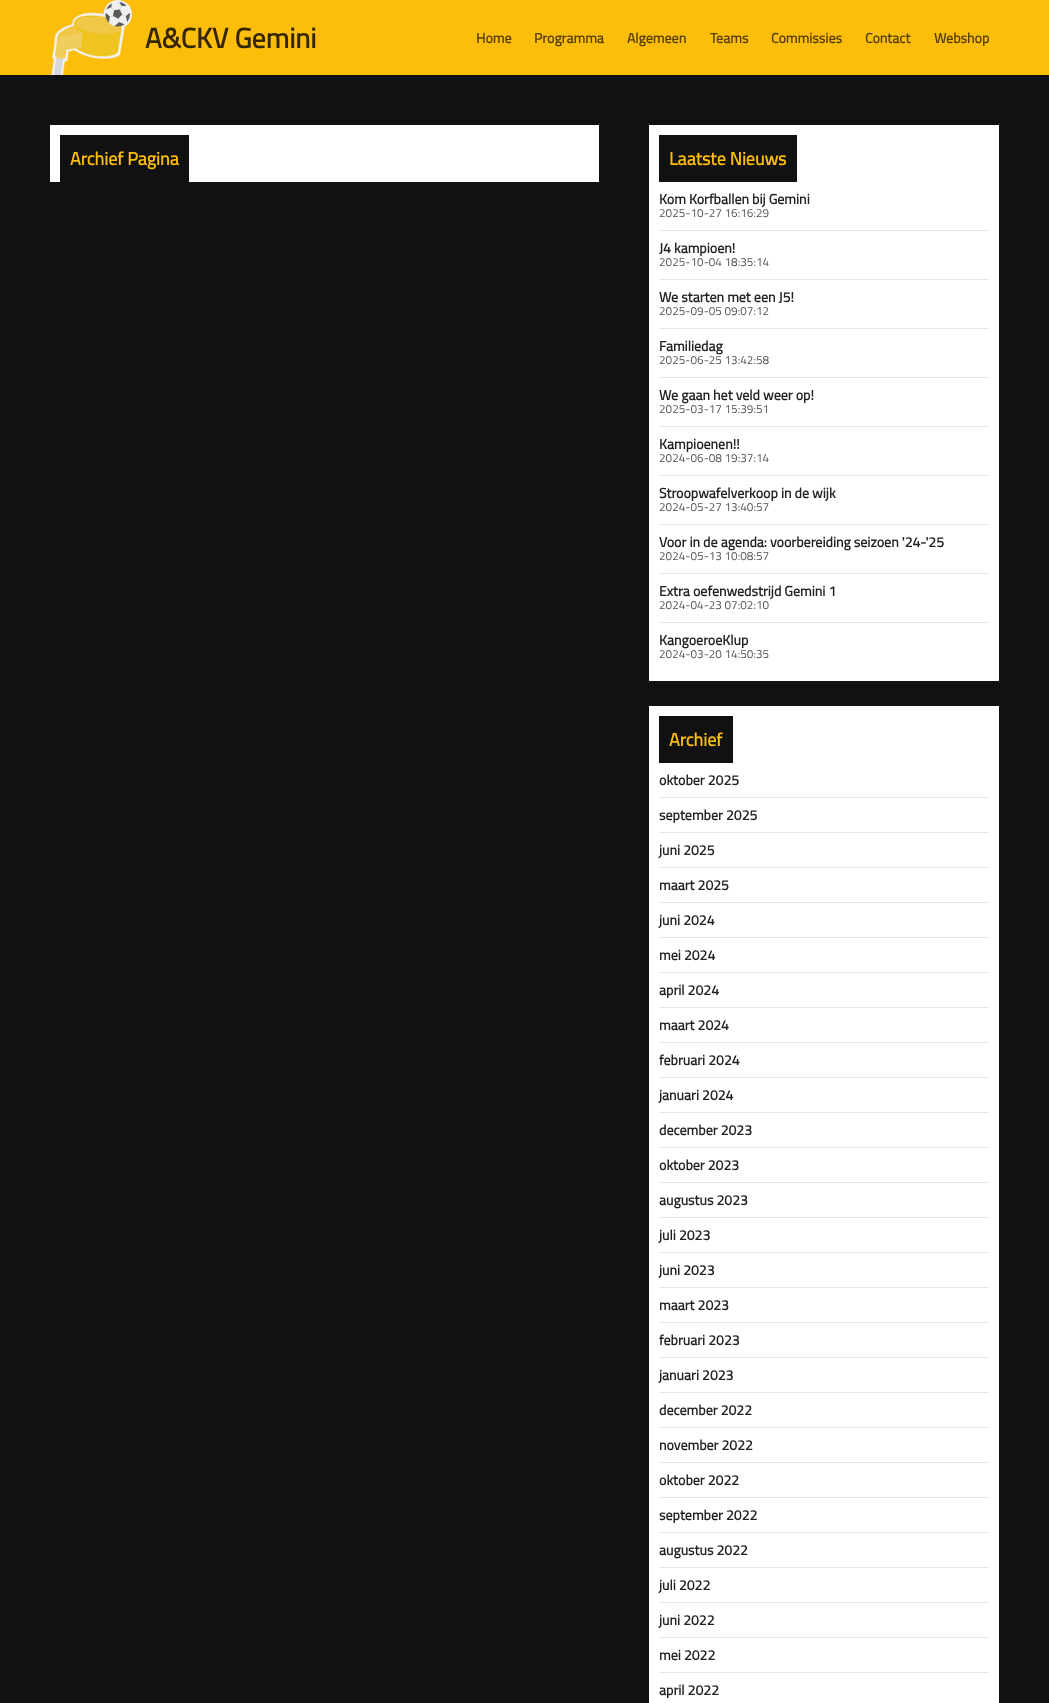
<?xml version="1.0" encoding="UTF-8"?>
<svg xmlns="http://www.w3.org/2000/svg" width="1049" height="1703">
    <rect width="100%" height="100%" fill="#111111"/>
    <rect x="0" y="0" width="1049" height="75" fill="#FDBD0B"/>
    <image x="51" y="0" width="81" height="75" href="img_01.png"/>
    <text x="145" y="48" font-family="Titillium Web" font-size="28" font-weight="700" fill="#332602">A&amp;CKV Gemini</text>
    <text x="476" y="43" font-family="Titillium Web" font-size="14" font-weight="700" fill="#564004">Home</text>
    <text x="534" y="43" font-family="Titillium Web" font-size="14" font-weight="700" fill="#564004">Programma</text>
    <text x="627" y="43" font-family="Titillium Web" font-size="14" font-weight="700" fill="#564004">Algemeen</text>
    <text x="710" y="43" font-family="Titillium Web" font-size="14" font-weight="700" fill="#564004">Teams</text>
    <text x="771" y="43" font-family="Titillium Web" font-size="14" font-weight="700" fill="#564004">Commissies</text>
    <text x="865" y="43" font-family="Titillium Web" font-size="14" font-weight="700" fill="#564004">Contact</text>
    <text x="934" y="43" font-family="Titillium Web" font-size="14" font-weight="700" fill="#564004">Webshop</text>
    <rect x="50" y="125" width="549" height="57" fill="#FFFFFF"/>
    <rect x="60" y="135" width="129" height="47" fill="#111111"/>
    <text x="70" y="165" font-family="Titillium Web" font-size="18" font-weight="700" fill="#FDBD0B">Archief Pagina</text>
    <rect x="649" y="125" width="350" height="556" fill="#FFFFFF"/>
    <rect x="659" y="135" width="138" height="47" fill="#111111"/>
    <text x="669" y="165" font-family="Titillium Web" font-size="18" font-weight="700" fill="#FDBD0B">Laatste Nieuws</text>
    <rect x="659" y="230" width="330" height="1" fill="#E6E6E6"/>
    <text x="659" y="204" font-family="Titillium Web" font-size="14" font-weight="700" fill="#222222">Kom Korfballen bij Gemini</text>
    <text x="659" y="217" font-family="Titillium Web" font-size="11.75" fill="#555555">2025-10-27 16:16:29</text>
    <rect x="659" y="279" width="330" height="1" fill="#E6E6E6"/>
    <text x="659" y="253" font-family="Titillium Web" font-size="14" font-weight="700" fill="#222222">J4 kampioen!</text>
    <text x="659" y="266" font-family="Titillium Web" font-size="11.75" fill="#555555">2025-10-04 18:35:14</text>
    <rect x="659" y="328" width="330" height="1" fill="#E6E6E6"/>
    <text x="659" y="302" font-family="Titillium Web" font-size="14" font-weight="700" fill="#222222">We starten met een J5!</text>
    <text x="659" y="315" font-family="Titillium Web" font-size="11.75" fill="#555555">2025-09-05 09:07:12</text>
    <rect x="659" y="377" width="330" height="1" fill="#E6E6E6"/>
    <text x="659" y="351" font-family="Titillium Web" font-size="14" font-weight="700" fill="#222222">Familiedag</text>
    <text x="659" y="364" font-family="Titillium Web" font-size="11.75" fill="#555555">2025-06-25 13:42:58</text>
    <rect x="659" y="426" width="330" height="1" fill="#E6E6E6"/>
    <text x="659" y="400" font-family="Titillium Web" font-size="14" font-weight="700" fill="#222222">We gaan het veld weer op!</text>
    <text x="659" y="413" font-family="Titillium Web" font-size="11.75" fill="#555555">2025-03-17 15:39:51</text>
    <rect x="659" y="475" width="330" height="1" fill="#E6E6E6"/>
    <text x="659" y="449" font-family="Titillium Web" font-size="14" font-weight="700" fill="#222222">Kampioenen!!</text>
    <text x="659" y="462" font-family="Titillium Web" font-size="11.75" fill="#555555">2024-06-08 19:37:14</text>
    <rect x="659" y="524" width="330" height="1" fill="#E6E6E6"/>
    <text x="659" y="498" font-family="Titillium Web" font-size="14" font-weight="700" fill="#222222">Stroopwafelverkoop in de wijk</text>
    <text x="659" y="511" font-family="Titillium Web" font-size="11.75" fill="#555555">2024-05-27 13:40:57</text>
    <rect x="659" y="573" width="330" height="1" fill="#E6E6E6"/>
    <text x="659" y="547" font-family="Titillium Web" font-size="14" font-weight="700" fill="#222222">Voor in de agenda: voorbereiding seizoen '24-'25</text>
    <text x="659" y="560" font-family="Titillium Web" font-size="11.75" fill="#555555">2024-05-13 10:08:57</text>
    <rect x="659" y="622" width="330" height="1" fill="#E6E6E6"/>
    <text x="659" y="596" font-family="Titillium Web" font-size="14" font-weight="700" fill="#222222">Extra oefenwedstrijd Gemini 1</text>
    <text x="659" y="609" font-family="Titillium Web" font-size="11.75" fill="#555555">2024-04-23 07:02:10</text>
    <text x="659" y="645" font-family="Titillium Web" font-size="14" font-weight="700" fill="#222222">KangoeroeKlup</text>
    <text x="659" y="658" font-family="Titillium Web" font-size="11.75" fill="#555555">2024-03-20 14:50:35</text>
    <rect x="649" y="706" width="350" height="997" fill="#FFFFFF"/>
    <rect x="659" y="716" width="74" height="47" fill="#111111"/>
    <text x="669" y="746" font-family="Titillium Web" font-size="18" font-weight="700" fill="#FDBD0B">Archief</text>
    <rect x="659" y="797" width="330" height="1" fill="#E6E6E6"/>
    <text x="659" y="785" font-family="Titillium Web" font-size="14" font-weight="700" fill="#222222">oktober 2025</text>
    <rect x="659" y="832" width="330" height="1" fill="#E6E6E6"/>
    <text x="659" y="820" font-family="Titillium Web" font-size="14" font-weight="700" fill="#222222">september 2025</text>
    <rect x="659" y="867" width="330" height="1" fill="#E6E6E6"/>
    <text x="659" y="855" font-family="Titillium Web" font-size="14" font-weight="700" fill="#222222">juni 2025</text>
    <rect x="659" y="902" width="330" height="1" fill="#E6E6E6"/>
    <text x="659" y="890" font-family="Titillium Web" font-size="14" font-weight="700" fill="#222222">maart 2025</text>
    <rect x="659" y="937" width="330" height="1" fill="#E6E6E6"/>
    <text x="659" y="925" font-family="Titillium Web" font-size="14" font-weight="700" fill="#222222">juni 2024</text>
    <rect x="659" y="972" width="330" height="1" fill="#E6E6E6"/>
    <text x="659" y="960" font-family="Titillium Web" font-size="14" font-weight="700" fill="#222222">mei 2024</text>
    <rect x="659" y="1007" width="330" height="1" fill="#E6E6E6"/>
    <text x="659" y="995" font-family="Titillium Web" font-size="14" font-weight="700" fill="#222222">april 2024</text>
    <rect x="659" y="1042" width="330" height="1" fill="#E6E6E6"/>
    <text x="659" y="1030" font-family="Titillium Web" font-size="14" font-weight="700" fill="#222222">maart 2024</text>
    <rect x="659" y="1077" width="330" height="1" fill="#E6E6E6"/>
    <text x="659" y="1065" font-family="Titillium Web" font-size="14" font-weight="700" fill="#222222">februari 2024</text>
    <rect x="659" y="1112" width="330" height="1" fill="#E6E6E6"/>
    <text x="659" y="1100" font-family="Titillium Web" font-size="14" font-weight="700" fill="#222222">januari 2024</text>
    <rect x="659" y="1147" width="330" height="1" fill="#E6E6E6"/>
    <text x="659" y="1135" font-family="Titillium Web" font-size="14" font-weight="700" fill="#222222">december 2023</text>
    <rect x="659" y="1182" width="330" height="1" fill="#E6E6E6"/>
    <text x="659" y="1170" font-family="Titillium Web" font-size="14" font-weight="700" fill="#222222">oktober 2023</text>
    <rect x="659" y="1217" width="330" height="1" fill="#E6E6E6"/>
    <text x="659" y="1205" font-family="Titillium Web" font-size="14" font-weight="700" fill="#222222">augustus 2023</text>
    <rect x="659" y="1252" width="330" height="1" fill="#E6E6E6"/>
    <text x="659" y="1240" font-family="Titillium Web" font-size="14" font-weight="700" fill="#222222">juli 2023</text>
    <rect x="659" y="1287" width="330" height="1" fill="#E6E6E6"/>
    <text x="659" y="1275" font-family="Titillium Web" font-size="14" font-weight="700" fill="#222222">juni 2023</text>
    <rect x="659" y="1322" width="330" height="1" fill="#E6E6E6"/>
    <text x="659" y="1310" font-family="Titillium Web" font-size="14" font-weight="700" fill="#222222">maart 2023</text>
    <rect x="659" y="1357" width="330" height="1" fill="#E6E6E6"/>
    <text x="659" y="1345" font-family="Titillium Web" font-size="14" font-weight="700" fill="#222222">februari 2023</text>
    <rect x="659" y="1392" width="330" height="1" fill="#E6E6E6"/>
    <text x="659" y="1380" font-family="Titillium Web" font-size="14" font-weight="700" fill="#222222">januari 2023</text>
    <rect x="659" y="1427" width="330" height="1" fill="#E6E6E6"/>
    <text x="659" y="1415" font-family="Titillium Web" font-size="14" font-weight="700" fill="#222222">december 2022</text>
    <rect x="659" y="1462" width="330" height="1" fill="#E6E6E6"/>
    <text x="659" y="1450" font-family="Titillium Web" font-size="14" font-weight="700" fill="#222222">november 2022</text>
    <rect x="659" y="1497" width="330" height="1" fill="#E6E6E6"/>
    <text x="659" y="1485" font-family="Titillium Web" font-size="14" font-weight="700" fill="#222222">oktober 2022</text>
    <rect x="659" y="1532" width="330" height="1" fill="#E6E6E6"/>
    <text x="659" y="1520" font-family="Titillium Web" font-size="14" font-weight="700" fill="#222222">september 2022</text>
    <rect x="659" y="1567" width="330" height="1" fill="#E6E6E6"/>
    <text x="659" y="1555" font-family="Titillium Web" font-size="14" font-weight="700" fill="#222222">augustus 2022</text>
    <rect x="659" y="1602" width="330" height="1" fill="#E6E6E6"/>
    <text x="659" y="1590" font-family="Titillium Web" font-size="14" font-weight="700" fill="#222222">juli 2022</text>
    <rect x="659" y="1637" width="330" height="1" fill="#E6E6E6"/>
    <text x="659" y="1625" font-family="Titillium Web" font-size="14" font-weight="700" fill="#222222">juni 2022</text>
    <rect x="659" y="1672" width="330" height="1" fill="#E6E6E6"/>
    <text x="659" y="1660" font-family="Titillium Web" font-size="14" font-weight="700" fill="#222222">mei 2022</text>
    <text x="659" y="1695" font-family="Titillium Web" font-size="14" font-weight="700" fill="#222222">april 2022</text>
</svg>
